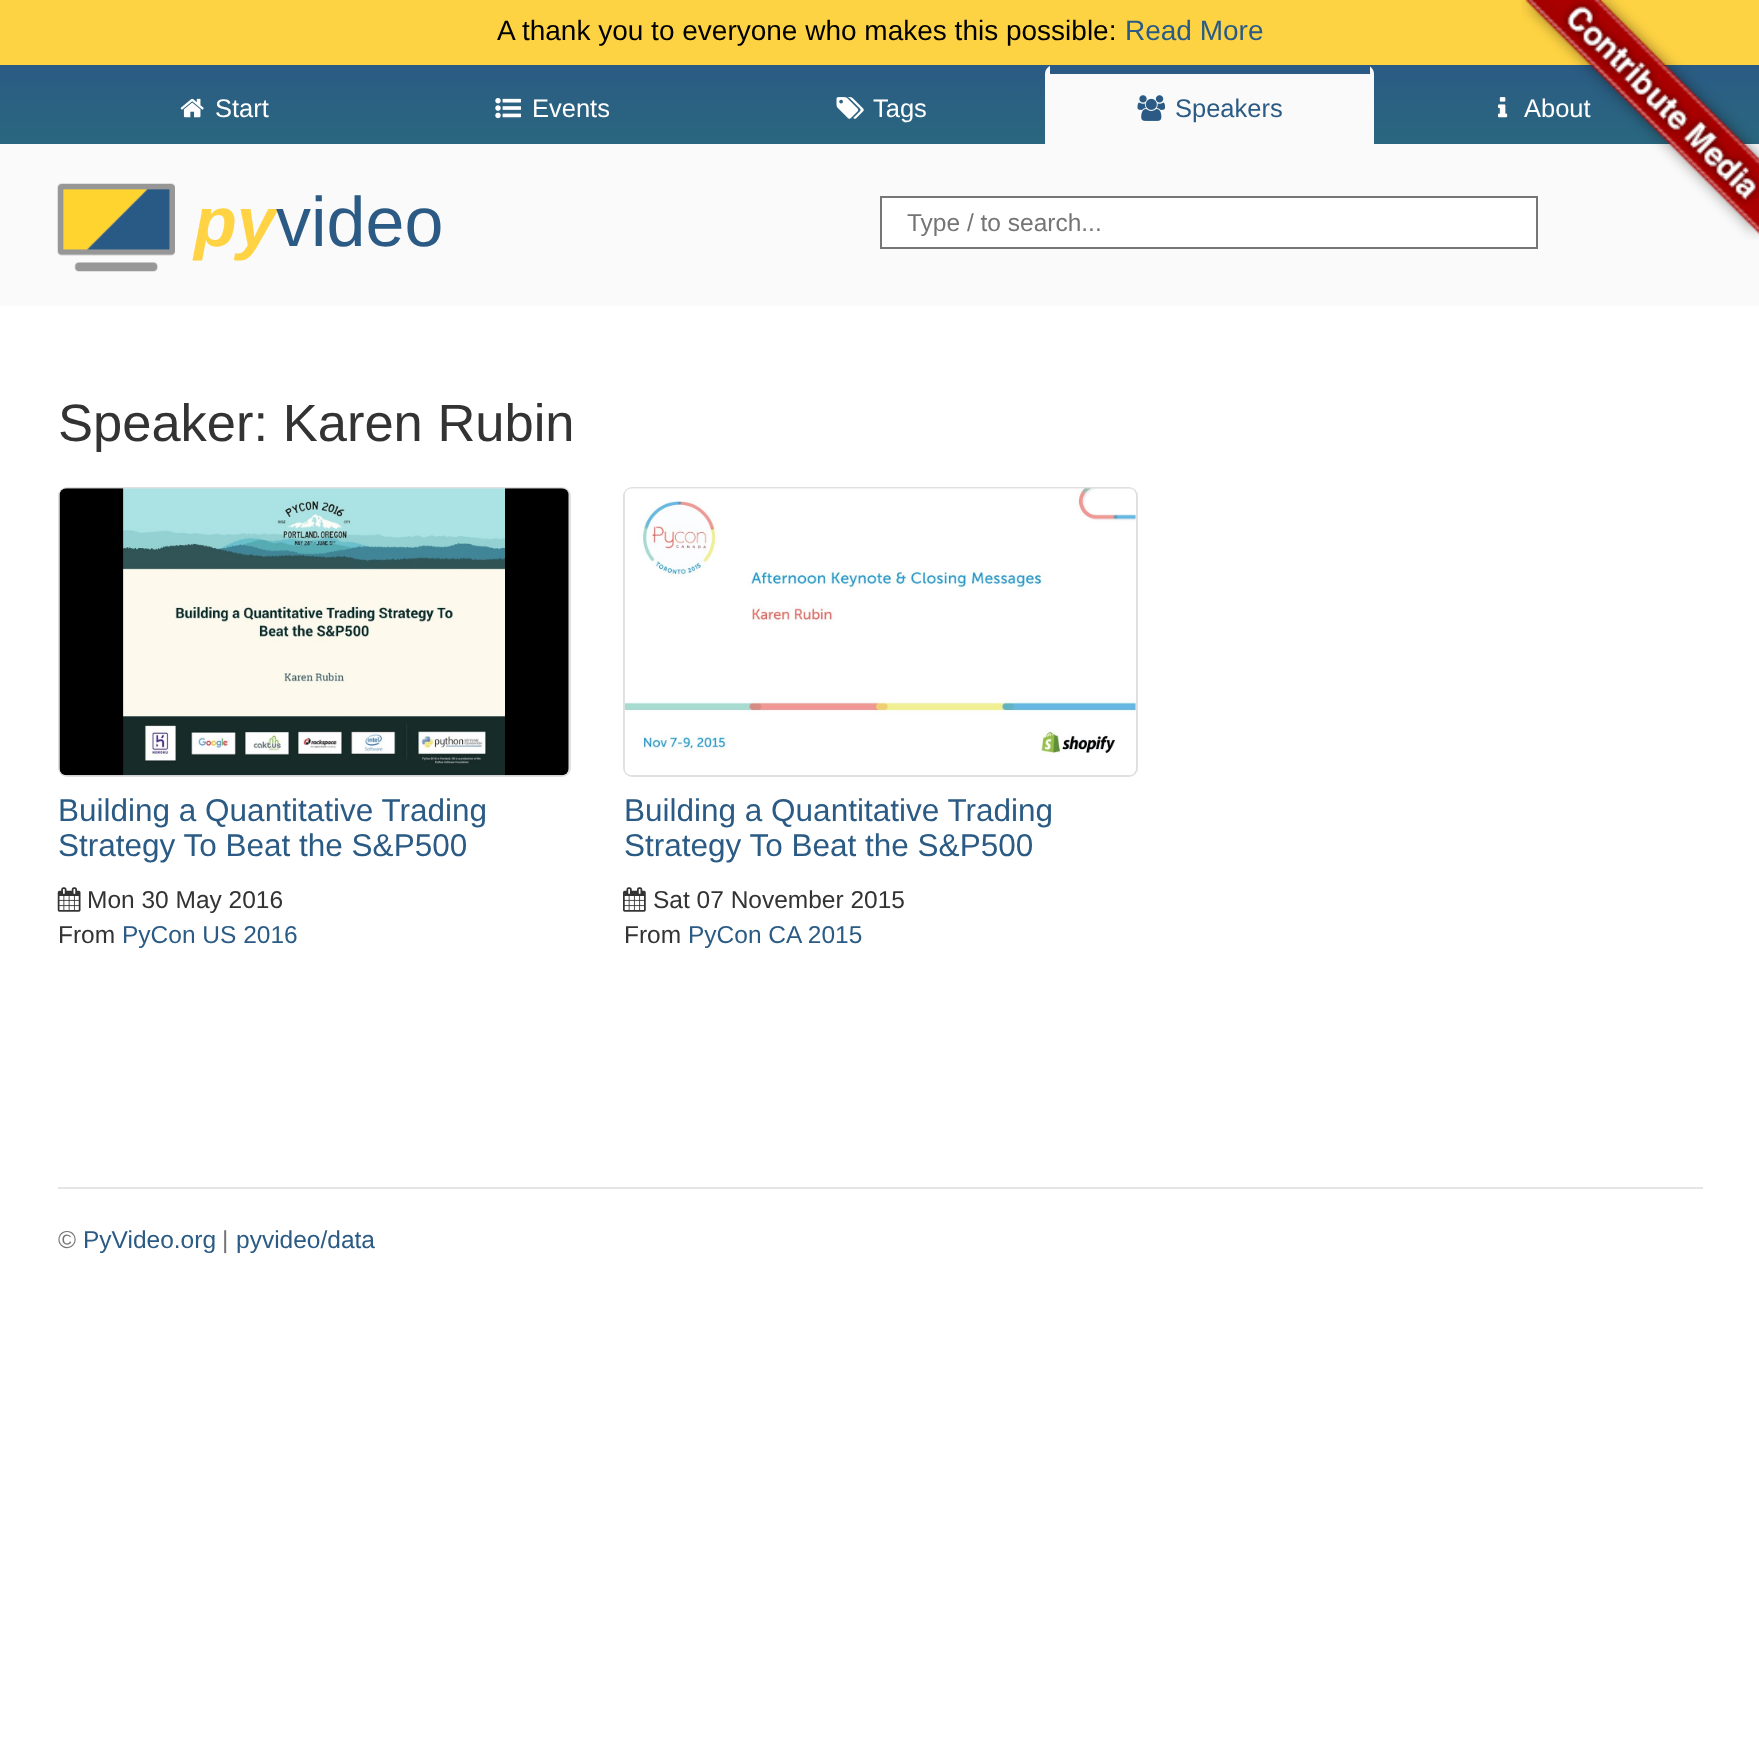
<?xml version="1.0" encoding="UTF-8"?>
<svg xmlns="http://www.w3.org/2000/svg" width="1759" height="1741">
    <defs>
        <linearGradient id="g1" gradientUnits="userSpaceOnUse" x1="880" y1="65" x2="880" y2="144"><stop offset="0" stop-color="#2B5B84"/><stop offset="1" stop-color="#2A677F"/></linearGradient>
    </defs>
    <rect width="100%" height="100%" fill="#FFFFFF"/>
    <rect x="0" y="0" width="1759" height="65" fill="#FED343"/>
    <text x="497" y="40" font-family="Liberation Sans" font-size="28" fill="#000000">A thank you to everyone who makes this possible:</text>
    <text x="1125" y="40" font-family="Liberation Sans" font-size="28" fill="#2B5B84">Read More</text>
    <rect x="0" y="144" width="1759" height="162" fill="#FAFAFA"/>
    <rect x="0" y="65" width="1759" height="79" fill="url(#g1)"/>
    <text x="1524" y="117" font-family="Liberation Sans" font-size="25.5" fill="#FFFFFF">About</text>
    <rect x="881" y="197" width="656" height="51" fill="#FFFFFF" stroke="#767676" stroke-width="2"/>
    <image x="1521" y="0" width="238" height="240" href="img_01.png"/>
    <image x="180" y="98" width="24" height="20" href="img_02.png"/>
    <text x="215" y="117" font-family="Liberation Sans" font-size="25.5" fill="#FFFFFF">Start</text>
    <image x="495" y="98" width="26" height="21" href="img_03.png"/>
    <text x="532" y="117" font-family="Liberation Sans" font-size="25.5" fill="#FFFFFF">Events</text>
    <image x="836" y="97" width="28" height="22" href="img_04.png"/>
    <text x="873" y="117" font-family="Liberation Sans" font-size="25.5" fill="#FFFFFF">Tags</text>
    <path d="M 1054 65 H 1365 C 1370 65 1374 69 1374 74 V 144 H 1045 V 74 C 1045 69 1049 65 1054 65 Z" fill="#FAFAFA"/>
    <rect x="1050" y="65" width="320" height="9" fill="#2B5B84"/>
    <image x="1137" y="95" width="29" height="26" href="img_05.png"/>
    <text x="1175" y="117" font-family="Liberation Sans" font-size="25.5" fill="#2B5B84">Speakers</text>
    <image x="1498" y="97" width="10" height="21" href="img_06.png"/>
    <image x="57" y="183" width="118" height="89" href="img_07.png"/>
    <text x="194" y="246" font-family="Liberation Sans" font-size="70" font-weight="700" font-style="italic" fill="#FFD343">py</text>
    <text x="276" y="246" font-family="Liberation Sans" font-size="70" fill="#2B5B84">video</text>
    <text x="907" y="231" font-family="Liberation Sans" font-size="24.5" fill="#757575">Type / to search...</text>
    <text x="58" y="441" font-family="Liberation Sans" font-size="52.5" fill="#333333">Speaker: Karen Rubin</text>
    <rect x="59" y="488" width="511" height="288" rx="8" fill="none" stroke="#E0E0E0" stroke-width="2"/>
    <image x="59" y="488" width="510" height="288" href="img_08.png"/>
    <text font-family="Liberation Sans" font-size="31.5" fill="#2B5B84">
        <tspan x="58" y="821">Building a Quantitative Trading</tspan>
        <tspan x="58" y="856">Strategy To Beat the S&amp;P500</tspan>
    </text>
    <image x="57" y="887" width="24" height="25" href="img_09.png"/>
    <text x="87" y="908" font-family="Liberation Sans" font-size="24.5" fill="#333333">Mon 30 May 2016</text>
    <text x="58" y="943" font-family="Liberation Sans" font-size="24.5" fill="#333333">From</text>
    <text x="122" y="943" font-family="Liberation Sans" font-size="24.5" fill="#2B5B84">PyCon US 2016</text>
    <rect x="624" y="488" width="513" height="288" rx="8" fill="none" stroke="#E0E0E0" stroke-width="2"/>
    <image x="624" y="488" width="512" height="287" href="img_10.png"/>
    <text font-family="Liberation Sans" font-size="31.5" fill="#2B5B84">
        <tspan x="624" y="821">Building a Quantitative Trading</tspan>
        <tspan x="624" y="856">Strategy To Beat the S&amp;P500</tspan>
    </text>
    <image x="623" y="887" width="23" height="25" href="img_11.png"/>
    <text x="653" y="908" font-family="Liberation Sans" font-size="24.5" fill="#333333">Sat 07 November 2015</text>
    <text x="624" y="943" font-family="Liberation Sans" font-size="24.5" fill="#333333">From</text>
    <text x="688" y="943" font-family="Liberation Sans" font-size="24.5" fill="#2B5B84">PyCon CA 2015</text>
    <rect x="58" y="1187" width="1645" height="2" fill="#E5E5E5"/>
    <text x="58" y="1248" font-family="Liberation Sans" font-size="24.5" fill="#757575">©</text>
    <text x="83" y="1248" font-family="Liberation Sans" font-size="24.5" fill="#2B5B84">PyVideo.org</text>
    <text x="222" y="1248" font-family="Liberation Sans" font-size="24.5" fill="#757575">|</text>
    <text x="236" y="1248" font-family="Liberation Sans" font-size="24.5" fill="#2B5B84">pyvideo/data</text>
</svg>
